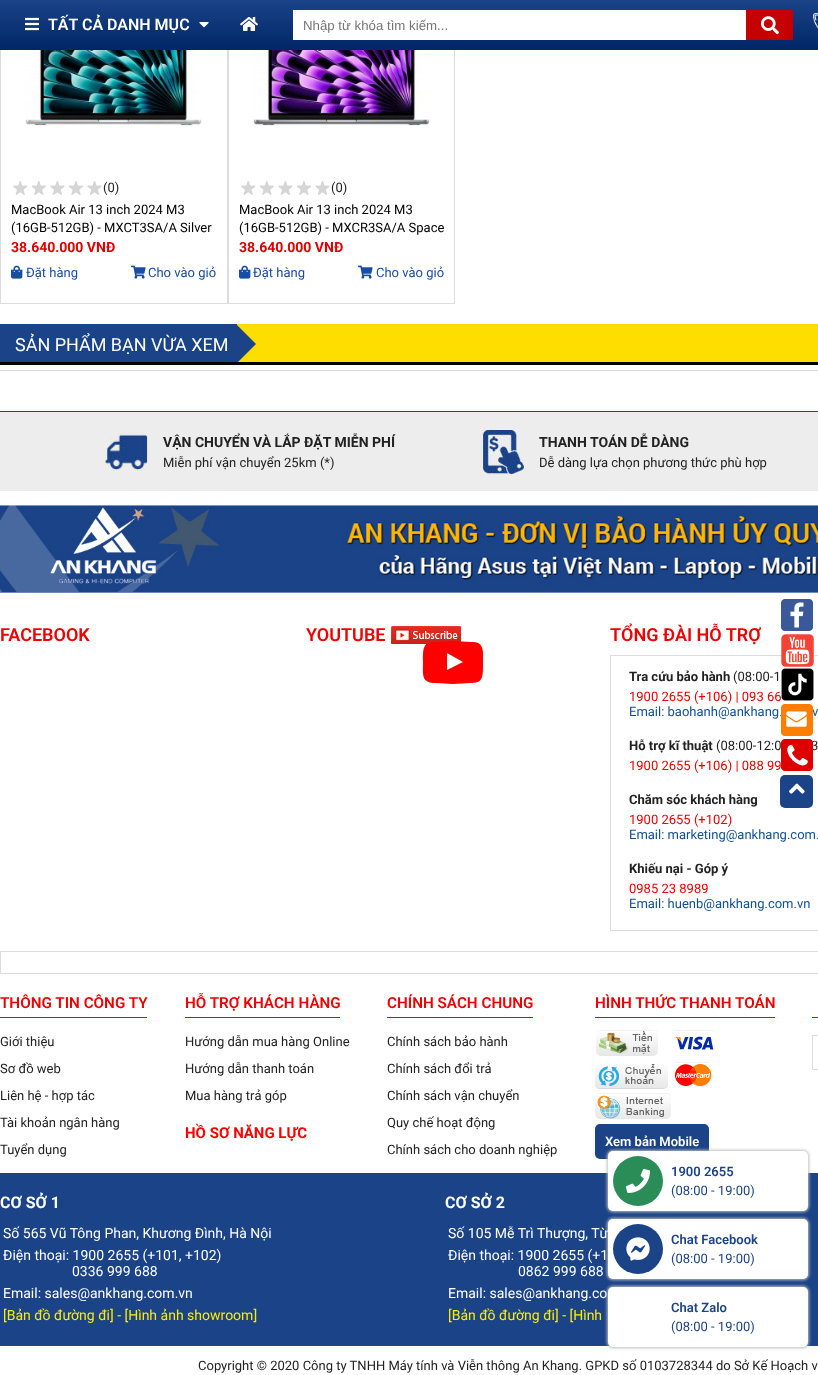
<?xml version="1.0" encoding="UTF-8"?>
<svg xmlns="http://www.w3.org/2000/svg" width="818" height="1375">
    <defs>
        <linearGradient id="g1" gradientUnits="userSpaceOnUse" x1="625" y1="0" x2="625" y2="50"><stop offset="0" stop-color="#1A4388"/><stop offset="1" stop-color="#002666"/></linearGradient>
        <clipPath id="clip1"><rect x="0" y="324" width="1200" height="38"/></clipPath>
        <filter id="blur1" x="-50%" y="-200%" width="200%" height="500%"><feGaussianBlur stdDeviation="1.5"/></filter>
    </defs>
    <rect width="100%" height="100%" fill="#FFFFFF"/>
    <rect x="0" y="0" width="818" height="50" fill="url(#g1)"/>
    <image x="25" y="17" width="14" height="14" href="img_01.png"/>
    <text x="48" y="30" font-family="Roboto" font-size="16" font-weight="600" fill="#FFFFFF">TẤT CẢ DANH MỤC</text>
    <image x="199" y="22" width="10" height="6" href="img_02.png"/>
    <image x="240" y="17" width="18" height="14" href="img_03.png"/>
    <rect x="293" y="10" width="453" height="30" fill="#FFFFFF"/>
    <text x="303" y="30" font-family="Liberation Sans" font-size="13.25" fill="#757575">Nhập từ khóa tìm kiếm...</text>
    <rect x="746" y="10" width="47" height="30" fill="#C60000"/>
    <image x="761" y="16" width="18" height="19" href="img_04.png"/>
    <image x="813" y="13" width="5" height="16" href="img_05.png"/>
    <rect x="227" y="50" width="1" height="254" fill="#DDDDDD"/>
    <rect x="0" y="303" width="228" height="1" fill="#DDDDDD"/>
    <rect x="0" y="50" width="1" height="254" fill="#DDDDDD"/>
    <image x="25" y="50" width="177" height="76" href="img_06.png"/>
    <image x="13" y="181" width="89" height="14" href="img_07.png"/>
    <text x="103" y="192" font-family="Roboto" font-size="13" fill="#222222">(0)</text>
    <text font-family="Roboto" font-size="13" fill="#000000">
        <tspan x="11" y="214">MacBook Air 13 inch 2024 M3</tspan>
        <tspan x="11" y="232">(16GB-512GB) - MXCT3SA/A Silver</tspan>
    </text>
    <text x="11" y="252" font-family="Roboto" font-size="14" font-weight="700" fill="#DD0000">38.640.000 VNĐ</text>
    <image x="11" y="265" width="12" height="14" href="img_08.png"/>
    <text x="26" y="277" font-family="Roboto" font-size="13" fill="#184DA5">Đặt hàng</text>
    <image x="131" y="265" width="15" height="14" href="img_09.png"/>
    <text x="148" y="277" font-family="Roboto" font-size="13" fill="#184DA5">Cho vào giỏ</text>
    <rect x="454" y="50" width="1" height="254" fill="#DDDDDD"/>
    <rect x="228" y="303" width="227" height="1" fill="#DDDDDD"/>
    <rect x="228" y="50" width="1" height="254" fill="#DDDDDD"/>
    <image x="252" y="50" width="178" height="76" href="img_10.png"/>
    <image x="241" y="181" width="89" height="14" href="img_07.png"/>
    <text x="331" y="192" font-family="Roboto" font-size="13" fill="#222222">(0)</text>
    <text font-family="Roboto" font-size="13" fill="#000000">
        <tspan x="239" y="214">MacBook Air 13 inch 2024 M3</tspan>
        <tspan x="239" y="232">(16GB-512GB) - MXCR3SA/A Space</tspan>
    </text>
    <text x="239" y="252" font-family="Roboto" font-size="14" font-weight="700" fill="#DD0000">38.640.000 VNĐ</text>
    <image x="239" y="265" width="12" height="14" href="img_08.png"/>
    <text x="253" y="277" font-family="Roboto" font-size="13" fill="#184DA5">Đặt hàng</text>
    <image x="358" y="265" width="15" height="14" href="img_09.png"/>
    <text x="376" y="277" font-family="Roboto" font-size="13" fill="#184DA5">Cho vào giỏ</text>
    <rect x="237" y="324" width="581" height="38" fill="#FEDE00"/>
    <rect x="0" y="362" width="818" height="3" fill="#000000"/>
    <rect x="0" y="324" width="237" height="38" fill="#1A4388"/>
    <text x="15" y="351" font-family="Roboto" font-size="18" fill="#FFFFFF">SẢN PHẨM BẠN VỪA XEM</text>
    <g clip-path="url(#clip1)">
        <path d="M 236 364 V 324 L 256 344 Z" fill="#1A4388"/>
    </g>
    <rect x="0" y="370" width="818" height="1" fill="#DDDDDD"/>
    <rect x="0" y="412" width="818" height="79" fill="#EDEDED"/>
    <rect x="0" y="411" width="818" height="1" fill="#1B4388"/>
    <image x="105" y="432" width="44" height="40" href="img_11.png"/>
    <text x="163" y="447" font-family="Roboto" font-size="14" font-weight="700" fill="#222222">VẬN CHUYỂN VÀ LẮP ĐẶT MIỄN PHÍ</text>
    <text x="163" y="467" font-family="Roboto" font-size="13" fill="#222222">Miễn phí vận chuyển 25km (*)</text>
    <image x="480" y="428" width="46" height="48" href="img_12.png"/>
    <text x="539" y="447" font-family="Roboto" font-size="14" font-weight="700" fill="#222222">THANH TOÁN DỄ DÀNG</text>
    <text x="539" y="467" font-family="Roboto" font-size="13" fill="#222222">Dễ dàng lựa chọn phương thức phù hợp</text>
    <image x="0" y="505" width="818" height="88" href="img_13.png"/>
    <text x="0" y="641" font-family="Roboto" font-size="18" font-weight="600" fill="#EE0000">FACEBOOK</text>
    <text x="306" y="641" font-family="Roboto" font-size="18" font-weight="600" fill="#EE0000">YOUTUBE</text>
    <image x="391" y="626" width="70" height="18" href="img_14.png"/>
    <path d="M 447 670 L 463 662 L 447 653 Z M 453 641 L 471 642 C 478 642 482 643 483 652 V 663 C 483 678 483 683 470 683 L 453 684 L 436 683 C 421 683 423 675 423 662 C 423 647 423 642 436 642 Z" fill="#FF0000"/>
    <text x="610" y="641" font-family="Roboto" font-size="18" font-weight="600" fill="#EE0000">TỔNG ĐÀI HỖ TRỢ</text>
    <rect x="610.5" y="655.5" width="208" height="275" fill="none" stroke="#DDDDDD"/>
    <text x="629" y="681" font-family="Roboto" font-size="13" font-weight="700" fill="#222222">Tra cứu bảo hành</text>
    <text x="733" y="681" font-family="Roboto" font-size="13" fill="#222222">(08:00-1</text>
    <text x="629" y="701" font-family="Roboto" font-size="13" fill="#EE0000">1900 2655 (+106) | 093 66</text>
    <text x="629" y="716" font-family="Roboto" font-size="13" fill="#124F95">Email: baohanh@ankhang.</text>
    <text x="812" y="716" font-family="Roboto" font-size="13" fill="#124F95">v</text>
    <text x="629" y="750" font-family="Roboto" font-size="13" font-weight="700" fill="#222222">Hỗ trợ kĩ thuật</text>
    <text x="716" y="750" font-family="Roboto" font-size="13" fill="#222222">(08:00-12:0</text>
    <text x="811" y="750" font-family="Roboto" font-size="13" fill="#222222">3</text>
    <text x="629" y="770" font-family="Roboto" font-size="13" fill="#EE0000">1900 2655 (+106) | 088 99</text>
    <text x="629" y="804" font-family="Roboto" font-size="13" font-weight="700" fill="#222222">Chăm sóc khách hàng</text>
    <text x="629" y="824" font-family="Roboto" font-size="13" fill="#EE0000">1900 2655 (+102)</text>
    <text x="629" y="839" font-family="Roboto" font-size="13" fill="#124F95">Email: marketing@ankhang.com.</text>
    <text x="629" y="873" font-family="Roboto" font-size="13" font-weight="700" fill="#222222">Khiếu nại - Góp ý</text>
    <text x="629" y="893" font-family="Roboto" font-size="13" fill="#EE0000">0985 23 8989</text>
    <text x="629" y="908" font-family="Roboto" font-size="13" fill="#124F95">Email: huenb@ankhang.com.vn</text>
    <rect x="0.5" y="951.5" width="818" height="22" fill="none" stroke="#DDDDDD"/>
    <rect x="0" y="1017" width="147" height="1" fill="#EE0000"/>
    <text x="0" y="1008" font-family="Roboto" font-size="15.25" font-weight="600" fill="#EE0000">THÔNG TIN CÔNG TY</text>
    <text x="0" y="1046" font-family="Roboto" font-size="13" fill="#222222">Giới thiệu</text>
    <text x="0" y="1073" font-family="Roboto" font-size="13" fill="#222222">Sơ đồ web</text>
    <text x="0" y="1100" font-family="Roboto" font-size="13" fill="#222222">Liên hệ - hợp tác</text>
    <text x="0" y="1127" font-family="Roboto" font-size="13" fill="#222222">Tài khoản ngân hàng</text>
    <text x="0" y="1154" font-family="Roboto" font-size="13" fill="#222222">Tuyển dụng</text>
    <rect x="185" y="1017" width="155" height="1" fill="#EE0000"/>
    <text x="185" y="1008" font-family="Roboto" font-size="15.25" font-weight="600" fill="#EE0000">HỖ TRỢ KHÁCH HÀNG</text>
    <text x="185" y="1046" font-family="Roboto" font-size="13" fill="#222222">Hướng dẫn mua hàng Online</text>
    <text x="185" y="1073" font-family="Roboto" font-size="13" fill="#222222">Hướng dẫn thanh toán</text>
    <text x="185" y="1100" font-family="Roboto" font-size="13" fill="#222222">Mua hàng trả góp</text>
    <text x="185" y="1138" font-family="Roboto" font-size="15" font-weight="700" fill="#FF0000">HỒ SƠ NĂNG LỰC</text>
    <rect x="387" y="1017" width="146" height="1" fill="#EE0000"/>
    <text x="387" y="1008" font-family="Roboto" font-size="15.25" font-weight="600" fill="#EE0000">CHÍNH SÁCH CHUNG</text>
    <text x="387" y="1046" font-family="Roboto" font-size="13" fill="#222222">Chính sách bảo hành</text>
    <text x="387" y="1073" font-family="Roboto" font-size="13" fill="#222222">Chính sách đổi trả</text>
    <text x="387" y="1100" font-family="Roboto" font-size="13" fill="#222222">Chính sách vận chuyển</text>
    <text x="387" y="1127" font-family="Roboto" font-size="13" fill="#222222">Quy chế hoạt động</text>
    <text x="387" y="1154" font-family="Roboto" font-size="13" fill="#222222">Chính sách cho doanh nghiệp</text>
    <rect x="595" y="1017" width="180" height="1" fill="#EE0000"/>
    <text x="595" y="1008" font-family="Roboto" font-size="15.25" font-weight="600" fill="#EE0000">HÌNH THỨC THANH TOÁN</text>
    <image x="596" y="1030" width="62" height="26" href="img_15.png"/>
    <image x="674" y="1030" width="42" height="20" href="img_16.png"/>
    <image x="595" y="1064" width="73" height="25" href="img_17.png"/>
    <image x="674" y="1062" width="38" height="24" href="img_18.png"/>
    <image x="595" y="1093" width="76" height="26" href="img_19.png"/>
    <rect x="595" y="1124" width="114" height="35" rx="5" fill="#1A4388"/>
    <text x="605" y="1146" font-family="Roboto" font-size="13" font-weight="600" fill="#FFFFFF">Xem bản Mobile</text>
    <rect x="812" y="1017" width="6" height="1" fill="#EE0000"/>
    <rect x="812.5" y="1035.5" width="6" height="34" fill="none" stroke="#DDDDDD"/>
    <image x="781" y="599" width="32" height="32" href="img_20.png"/>
    <image x="781" y="634" width="33" height="33" href="img_21.png"/>
    <image x="781" y="668" width="33" height="33" href="img_22.png"/>
    <image x="781" y="704" width="32" height="32" href="img_23.png"/>
    <image x="781" y="739" width="32" height="32" href="img_24.png"/>
    <rect x="780" y="775" width="33" height="33" rx="5" fill="#1A4388"/>
    <image x="789" y="783" width="16" height="11" href="img_25.png"/>
    <rect x="0" y="1173" width="818" height="173" fill="#1A4388"/>
    <text x="0" y="1208" font-family="Roboto" font-size="16" font-weight="700" fill="#FFFFFF">CƠ SỞ 1</text>
    <text font-family="Roboto" font-size="14" fill="#FFFFFF">
        <tspan x="3" y="1238">Số 565 Vũ Tông Phan, Khương Đình, Hà Nội</tspan>
        <tspan x="3" y="1260">Điện thoại: 1900 2655 (+101, +102)</tspan>
    </text>
    <text x="72" y="1276" font-family="Roboto" font-size="14" fill="#FFFFFF">0336 999 688</text>
    <text x="3" y="1298" font-family="Roboto" font-size="14" fill="#FFFFFF">Email: sales@ankhang.com.vn</text>
    <text x="3" y="1320" font-family="Roboto" font-size="14" fill="#FFED00">[Bản đồ đường đi] - [Hình ảnh showroom]</text>
    <text x="445" y="1208" font-family="Roboto" font-size="16" font-weight="700" fill="#FFFFFF">CƠ SỞ 2</text>
    <text font-family="Roboto" font-size="14" fill="#FFFFFF">
        <tspan x="448" y="1238">Số 105 Mễ Trì Thượng, Từ</tspan>
        <tspan x="448" y="1260">Điện thoại: 1900 2655 (+1</tspan>
    </text>
    <text x="518" y="1276" font-family="Roboto" font-size="14" fill="#FFFFFF">0862 999 688</text>
    <text x="448" y="1298" font-family="Roboto" font-size="14" fill="#FFFFFF">Email: sales@ankhang.co</text>
    <text x="448" y="1320" font-family="Roboto" font-size="14" fill="#FFED00">[Bản đồ đường đi] - [Hình</text>
    <rect x="607" y="1150" width="202" height="62" rx="6" fill="#BFBFBF" filter="url(#blur1)"/>
    <rect x="608" y="1151" width="200" height="60" rx="5" fill="#FFFFFF"/>
    <circle cx="638" cy="1181" r="25" fill="#2A8D57"/>
    <image x="626" y="1169" width="24" height="24" href="img_26.png"/>
    <text x="671" y="1176" font-family="Roboto" font-size="13" font-weight="600" fill="#1A4388">1900 2655</text>
    <text x="671" y="1195" font-family="Roboto" font-size="13" fill="#1A4388">(08:00 - 19:00)</text>
    <rect x="607" y="1218" width="202" height="62" rx="6" fill="#BFBFBF" filter="url(#blur1)"/>
    <rect x="608" y="1219" width="200" height="60" rx="5" fill="#FFFFFF"/>
    <circle cx="638" cy="1249" r="25" fill="#1A4388"/>
    <image x="626" y="1237" width="24" height="24" href="img_27.png"/>
    <text x="671" y="1244" font-family="Roboto" font-size="13" font-weight="600" fill="#1A4388">Chat Facebook</text>
    <text x="671" y="1263" font-family="Roboto" font-size="13" fill="#1A4388">(08:00 - 19:00)</text>
    <rect x="607" y="1286" width="202" height="62" rx="6" fill="#BFBFBF" filter="url(#blur1)"/>
    <rect x="608" y="1287" width="200" height="60" rx="5" fill="#FFFFFF"/>
    <text x="671" y="1312" font-family="Roboto" font-size="13" font-weight="600" fill="#1A4388">Chat Zalo</text>
    <text x="671" y="1331" font-family="Roboto" font-size="13" fill="#1A4388">(08:00 - 19:00)</text>
    <text x="198" y="1370" font-family="Roboto" font-size="13" fill="#222222">Copyright © 2020 Công ty TNHH Máy tính và Viễn thông An Khang. GPKD số 0103728344 do Sở Kế Hoạch v</text>
</svg>
